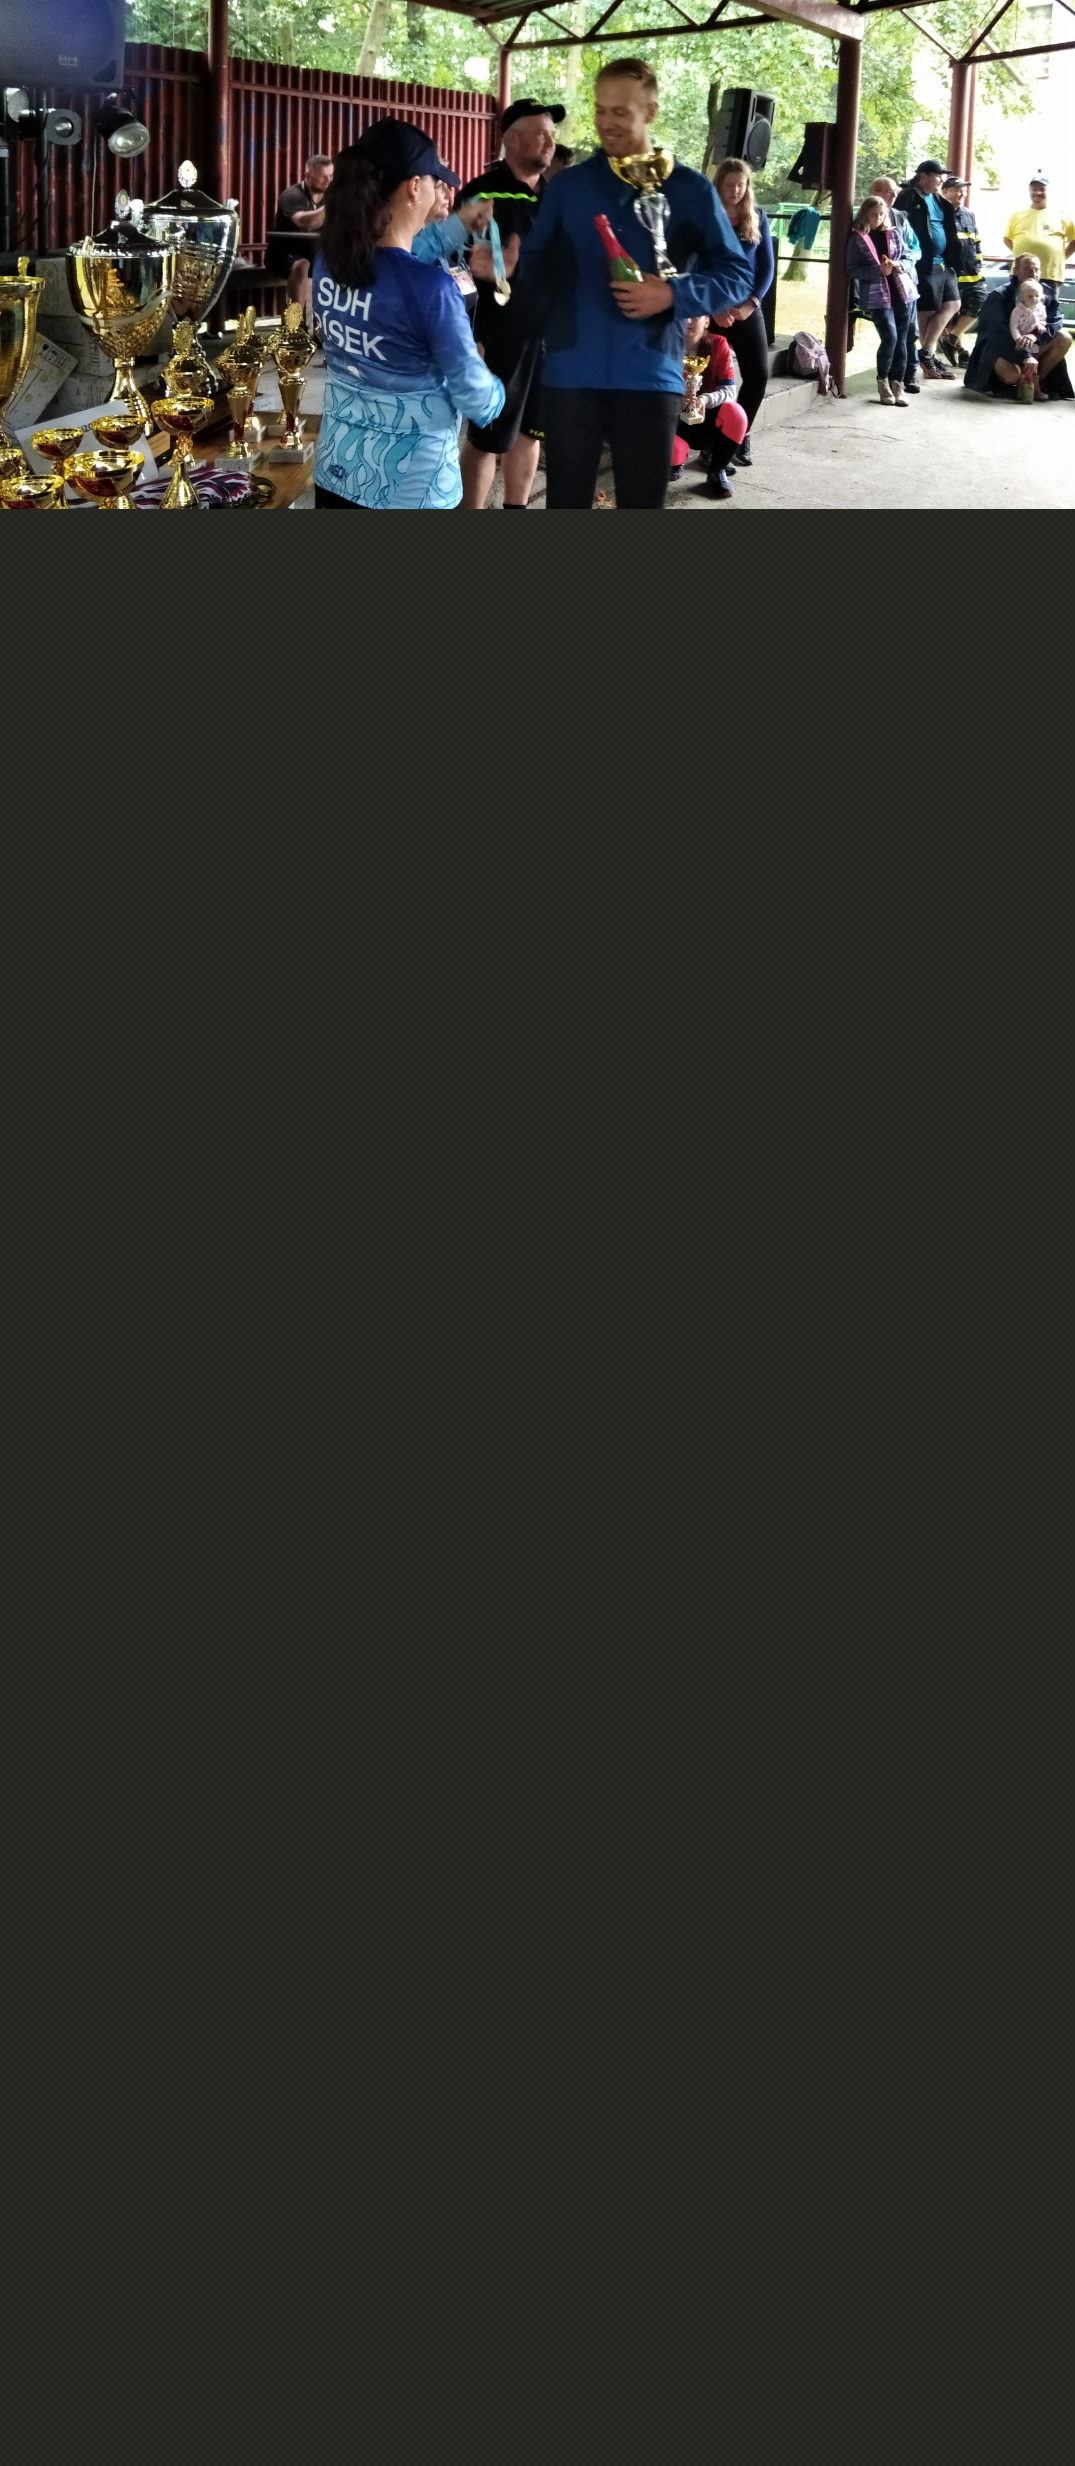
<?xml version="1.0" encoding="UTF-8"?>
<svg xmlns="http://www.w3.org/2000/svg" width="1075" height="2466">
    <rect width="100%" height="100%" fill="#25251F"/>
    <image x="0" y="509" width="1075" height="1957" href="img_01.png"/>
    <image x="0" y="0" width="1075" height="509" href="img_02.png"/>
</svg>
